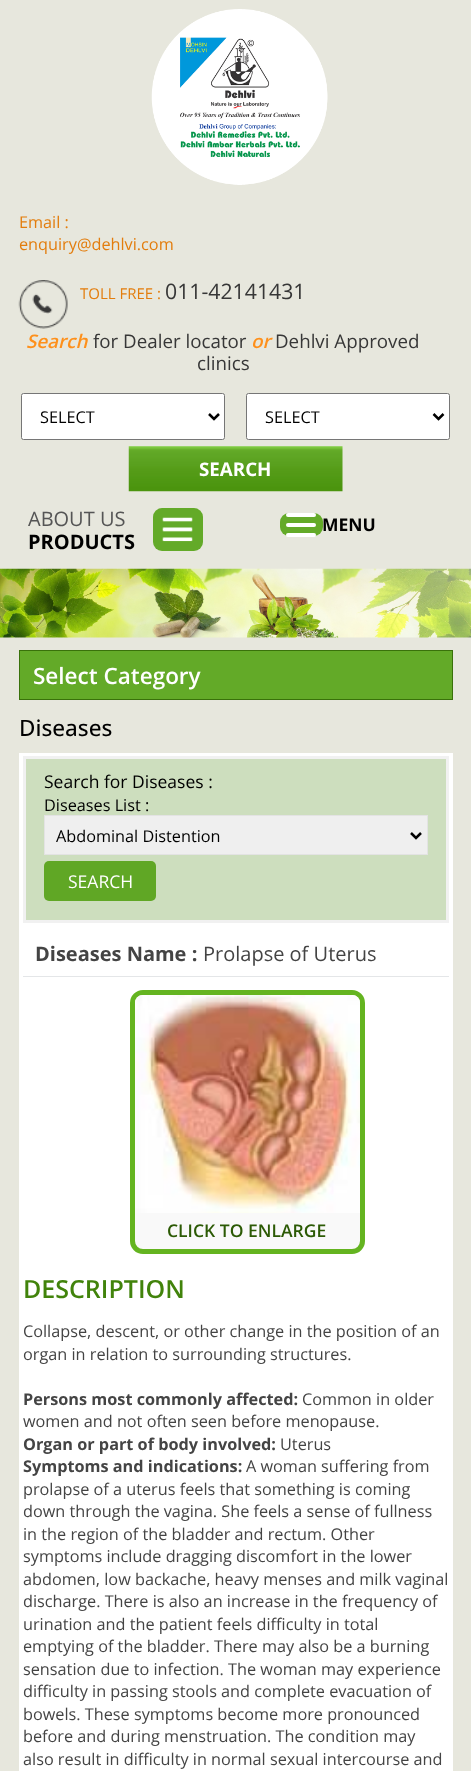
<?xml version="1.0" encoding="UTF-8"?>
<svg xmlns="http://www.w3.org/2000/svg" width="471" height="1771">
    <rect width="100%" height="100%" fill="#E7E7DD"/>
    <image x="151" y="9" width="177" height="176" href="img_01.png"/>
    <text font-family="Open Sans" font-size="16.25" fill="#E37D0D">
        <tspan x="19" y="228">Email :</tspan>
        <tspan x="19" y="250">enquiry@dehlvi.com</tspan>
    </text>
    <image x="18" y="280" width="50" height="49" href="img_02.png"/>
    <text x="80" y="299" font-family="Open Sans" font-size="15" fill="#E37D0D">TOLL FREE :</text>
    <text x="165" y="299" font-family="Open Sans" font-size="21.25" fill="#373737">011-42141431</text>
    <text x="26" y="348" font-family="Open Sans" font-size="18.75" font-weight="600" font-style="italic" fill="#FE901B">Search</text>
    <text x="93" y="348" font-family="Open Sans" font-size="18.75" fill="#373737">for Dealer locator</text>
    <text x="251" y="348" font-family="Open Sans" font-size="18.75" font-weight="600" font-style="italic" fill="#FE901B">or</text>
    <text x="275" y="348" font-family="Open Sans" font-size="18.75" fill="#373737">Dehlvi Approved</text>
    <text x="197" y="370" font-family="Open Sans" font-size="18.75" fill="#373737">clinics</text>
    <rect x="21.5" y="393.5" width="203" height="46" rx="2" fill="#FFFFFF" stroke="#767676"/>
    <path d="M 209 414 L 214 419 L 219 414" fill="none" stroke="#000000" stroke-width="2.5"/>
    <text x="40" y="423" font-family="Open Sans" font-size="16.25" fill="#000000">SELECT</text>
    <rect x="246.5" y="393.5" width="203" height="46" rx="2" fill="#FFFFFF" stroke="#767676"/>
    <path d="M 433.5 414 L 438.5 419 L 443.5 414" fill="none" stroke="#000000" stroke-width="2.5"/>
    <text x="265" y="423" font-family="Open Sans" font-size="16.25" fill="#000000">SELECT</text>
    <image x="128" y="446" width="215" height="46" href="img_03.png"/>
    <text x="199" y="476" font-family="Open Sans" font-size="18.75" font-weight="700" fill="#FFFFFF">SEARCH</text>
    <text x="28" y="526" font-family="Open Sans" font-size="20" fill="#555555">ABOUT US</text>
    <rect x="153" y="508" width="50" height="43" rx="9" fill="#63AA28"/>
    <image x="162" y="517" width="31" height="25" href="img_04.png"/>
    <text x="28" y="549" font-family="Open Sans" font-size="20" font-weight="700" fill="#000000">PRODUCTS</text>
    <rect x="280" y="513" width="43" height="23" rx="9" fill="#63AA28"/>
    <rect x="286" y="513" width="30" height="4" rx="2" fill="#FFFFFF"/>
    <rect x="286" y="523" width="30" height="4" rx="2" fill="#FFFFFF"/>
    <rect x="286" y="533" width="30" height="4" rx="2" fill="#FFFFFF"/>
    <text x="322" y="531" font-family="Open Sans" font-size="17.5" font-weight="700" fill="#000000">MENU</text>
    <image x="0" y="568" width="471" height="70" href="img_05.png"/>
    <rect x="19.5" y="650.5" width="433" height="49" fill="#63AA28" stroke="#39710A"/>
    <text x="33" y="684" font-family="Open Sans" font-size="22.5" font-weight="600" fill="#FFFFFF">Select Category</text>
    <text x="19" y="736" font-family="Open Sans" font-size="22.5" font-weight="500" fill="#000000">Diseases</text>
    <rect x="19" y="753" width="434" height="1018" fill="#FFFFFF"/>
    <rect x="24.5" y="757.5" width="423" height="164" fill="#CDDEBE" stroke="#F1F1F1" stroke-width="3"/>
    <text x="44" y="788" font-family="Open Sans" font-size="17.5" fill="#000000">Search for Diseases :</text>
    <text x="44" y="811" font-family="Open Sans" font-size="16.25" fill="#000000">Diseases List :</text>
    <rect x="44.5" y="815.5" width="383" height="39" fill="#EFEFEF" stroke="#E3E3E3"/>
    <path d="M 411 833 L 416 838 L 421 833" fill="none" stroke="#000000" stroke-width="2.5"/>
    <text x="56" y="842" font-family="Open Sans" font-size="16.25" fill="#000000">Abdominal Distention</text>
    <rect x="44" y="861" width="112" height="40" rx="5" fill="#60A725"/>
    <text x="68" y="888" font-family="Open Sans" font-size="17.5" fill="#FFFFFF">SEARCH</text>
    <rect x="23" y="976" width="426" height="1" fill="#E4E6E8"/>
    <text x="35" y="961" font-family="Open Sans" font-size="20" font-weight="700" fill="#444444">Diseases Name :</text>
    <text x="203" y="961" font-family="Open Sans" font-size="20" fill="#444444">Prolapse of Uterus</text>
    <rect x="132.5" y="992.5" width="230" height="259" rx="10.5" fill="#F9F9F9" stroke="#64B420" stroke-width="5"/>
    <image x="135" y="995" width="225" height="218" href="img_06.png"/>
    <text x="167" y="1237" font-family="Open Sans" font-size="17.5" font-weight="600" fill="#2C5A05">CLICK TO ENLARGE</text>
    <text x="23" y="1298" font-family="Open Sans" font-size="25" font-weight="600" fill="#41830B">DESCRIPTION</text>
    <text font-family="Open Sans" font-size="16.25" fill="#444444">
        <tspan x="23" y="1337">Collapse, descent, or other change in the position of an</tspan>
        <tspan x="23" y="1360">organ in relation to surrounding structures.</tspan>
    </text>
    <text x="23" y="1405" font-family="Open Sans" font-size="16.25" font-weight="700" fill="#444444">Persons most commonly affected:</text>
    <text x="302" y="1405" font-family="Open Sans" font-size="16.25" fill="#444444">Common in older</text>
    <text x="23" y="1427" font-family="Open Sans" font-size="16.25" fill="#444444">women and not often seen before menopause.</text>
    <text x="23" y="1450" font-family="Open Sans" font-size="16.25" font-weight="700" fill="#444444">Organ or part of body involved:</text>
    <text x="280" y="1450" font-family="Open Sans" font-size="16.25" fill="#444444">Uterus</text>
    <text x="23" y="1472" font-family="Open Sans" font-size="16.25" font-weight="700" fill="#444444">Symptoms and indications:</text>
    <text x="246" y="1472" font-family="Open Sans" font-size="16.25" fill="#444444">A woman suffering from</text>
    <text font-family="Open Sans" font-size="16.25" fill="#444444">
        <tspan x="23" y="1495">prolapse of a uterus feels that something is coming</tspan>
        <tspan x="23" y="1517">down through the vagina. She feels a sense of fullness</tspan>
        <tspan x="23" y="1540">in the region of the bladder and rectum. Other</tspan>
        <tspan x="23" y="1562">symptoms include dragging discomfort in the lower</tspan>
        <tspan x="23" y="1585">abdomen, low backache, heavy menses and milk vaginal</tspan>
        <tspan x="23" y="1607">discharge. There is also an increase in the frequency of</tspan>
        <tspan x="23" y="1630">urination and the patient feels difficulty in total</tspan>
        <tspan x="23" y="1652">emptying of the bladder. There may also be a burning</tspan>
        <tspan x="23" y="1675">sensation due to infection. The woman may experience</tspan>
        <tspan x="23" y="1697">difficulty in passing stools and complete evacuation of</tspan>
        <tspan x="23" y="1720">bowels. These symptoms become more pronounced</tspan>
        <tspan x="23" y="1742">before and during menstruation. The condition may</tspan>
        <tspan x="23" y="1765">also result in difficulty in normal sexual intercourse and</tspan>
    </text>
</svg>
